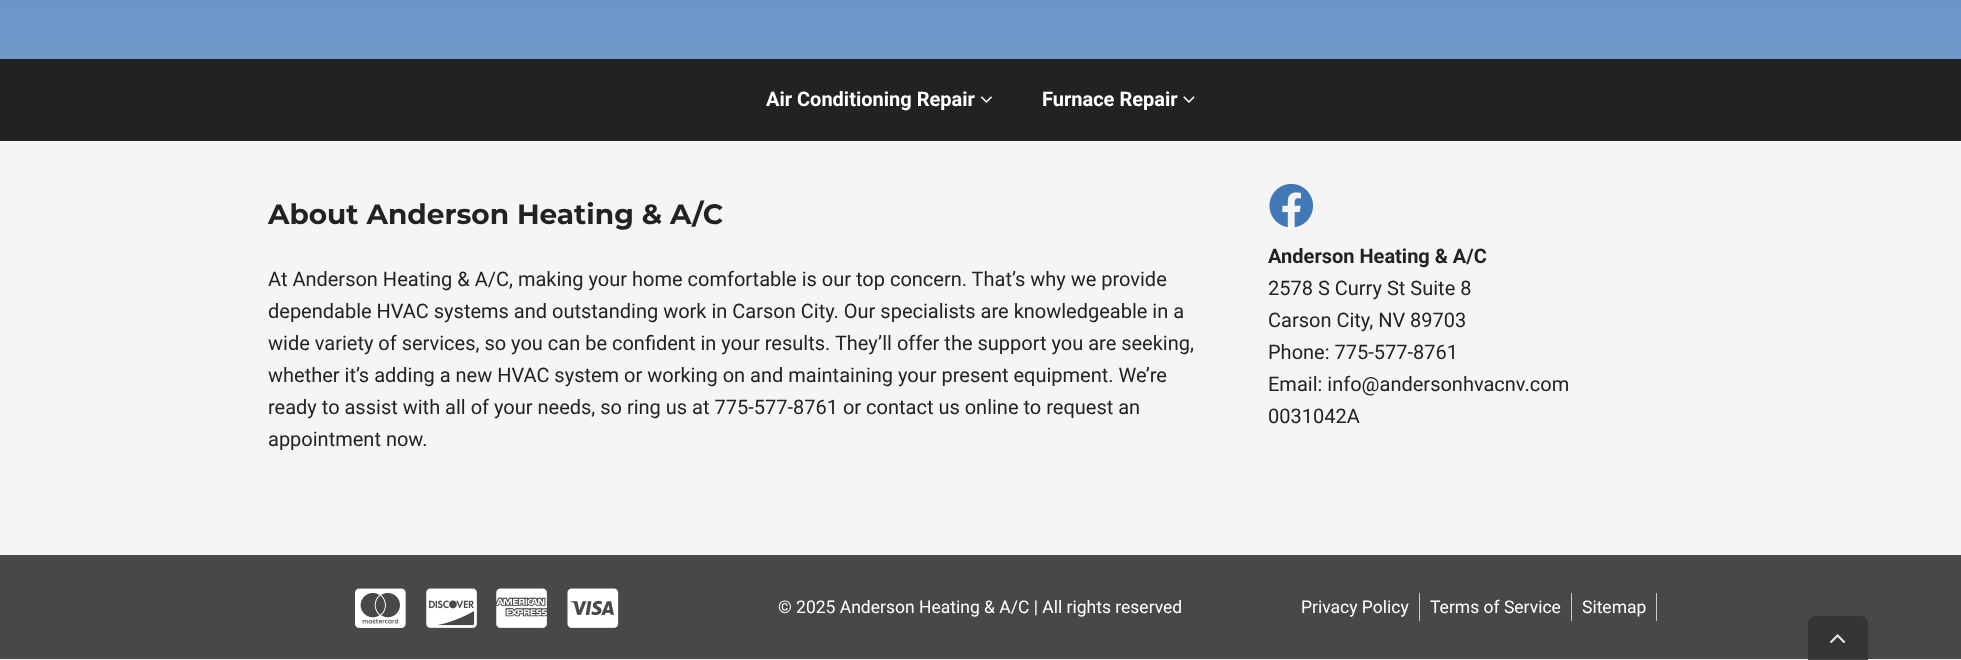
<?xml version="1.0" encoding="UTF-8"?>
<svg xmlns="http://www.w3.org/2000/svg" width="1961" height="660">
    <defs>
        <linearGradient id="g1" gradientUnits="userSpaceOnUse" x1="981" y1="-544" x2="981" y2="59"><stop offset="0" stop-color="#5385BF"/><stop offset="1" stop-color="#6E98C8"/></linearGradient>
    </defs>
    <rect width="100%" height="100%" fill="#F5F5F5"/>
    <rect x="0" y="0" width="1961" height="59" fill="url(#g1)"/>
    <rect x="0" y="59" width="1961" height="82" fill="#222222"/>
    <text x="766" y="106" font-family="Roboto" font-size="20" font-weight="700" fill="#FFFFFF">Air Conditioning Repair</text>
    <image x="980" y="96" width="12" height="7" href="img_01.png"/>
    <text x="1042" y="106" font-family="Roboto" font-size="20" font-weight="700" fill="#FFFFFF">Furnace Repair</text>
    <image x="1183" y="96" width="12" height="7" href="img_02.png"/>
    <text x="268" y="224" font-family="Montserrat" font-size="28" font-weight="700" fill="#222222">About Anderson Heating &amp; A/C</text>
    <text font-family="Roboto" font-size="20" fill="#222222">
        <tspan x="268" y="286">At Anderson Heating &amp; A/C, making your home comfortable is our top concern. That’s why we provide</tspan>
        <tspan x="268" y="318">dependable HVAC systems and outstanding work in Carson City. Our specialists are knowledgeable in a</tspan>
        <tspan x="268" y="350">wide variety of services, so you can be confident in your results. They’ll offer the support you are seeking,</tspan>
        <tspan x="268" y="382">whether it’s adding a new HVAC system or working on and maintaining your present equipment. We’re</tspan>
        <tspan x="268" y="414">ready to assist with all of your needs, so ring us at 775-577-8761 or contact us online to request an</tspan>
        <tspan x="268" y="446">appointment now.</tspan>
    </text>
    <image x="1269" y="183" width="45" height="45" href="img_03.png"/>
    <text x="1268" y="263" font-family="Roboto" font-size="20" font-weight="700" fill="#222222">Anderson Heating &amp; A/C</text>
    <text font-family="Roboto" font-size="20" fill="#222222">
        <tspan x="1268" y="295">2578 S Curry St Suite 8</tspan>
        <tspan x="1268" y="327">Carson City, NV 89703</tspan>
        <tspan x="1268" y="359">Phone: 775-577-8761</tspan>
        <tspan x="1268" y="391">Email: info@andersonhvacnv.com</tspan>
        <tspan x="1268" y="423">0031042A</tspan>
    </text>
    <rect x="0" y="555" width="1961" height="104" fill="#484848"/>
    <image x="355" y="588" width="51" height="40" href="img_04.png"/>
    <image x="426" y="588" width="51" height="40" href="img_05.png"/>
    <image x="496" y="588" width="51" height="40" href="img_06.png"/>
    <image x="567" y="588" width="52" height="40" href="img_07.png"/>
    <text x="778" y="613" font-family="Roboto" font-size="17.5" fill="#FFFFFF">© 2025 Anderson Heating &amp; A/C | All rights reserved</text>
    <text x="1301" y="613" font-family="Roboto" font-size="17.5" fill="#FFFFFF">Privacy Policy</text>
    <rect x="1419" y="593" width="1" height="28" fill="#CCCCCC"/>
    <text x="1430" y="613" font-family="Roboto" font-size="17.5" fill="#FFFFFF">Terms of Service</text>
    <rect x="1571" y="593" width="1" height="28" fill="#CCCCCC"/>
    <text x="1582" y="613" font-family="Roboto" font-size="17.5" fill="#FFFFFF">Sitemap</text>
    <rect x="1656" y="593" width="1" height="28" fill="#CCCCCC"/>
    <path d="M 1816 616 H 1860 C 1864.5 616 1868 619.5 1868 624 V 660 H 1808 V 624 C 1808 619.5 1811.5 616 1816 616 Z" fill="#333333" fill-opacity="0.9"/>
    <image x="1830" y="634" width="16" height="10" href="img_08.png"/>
</svg>
